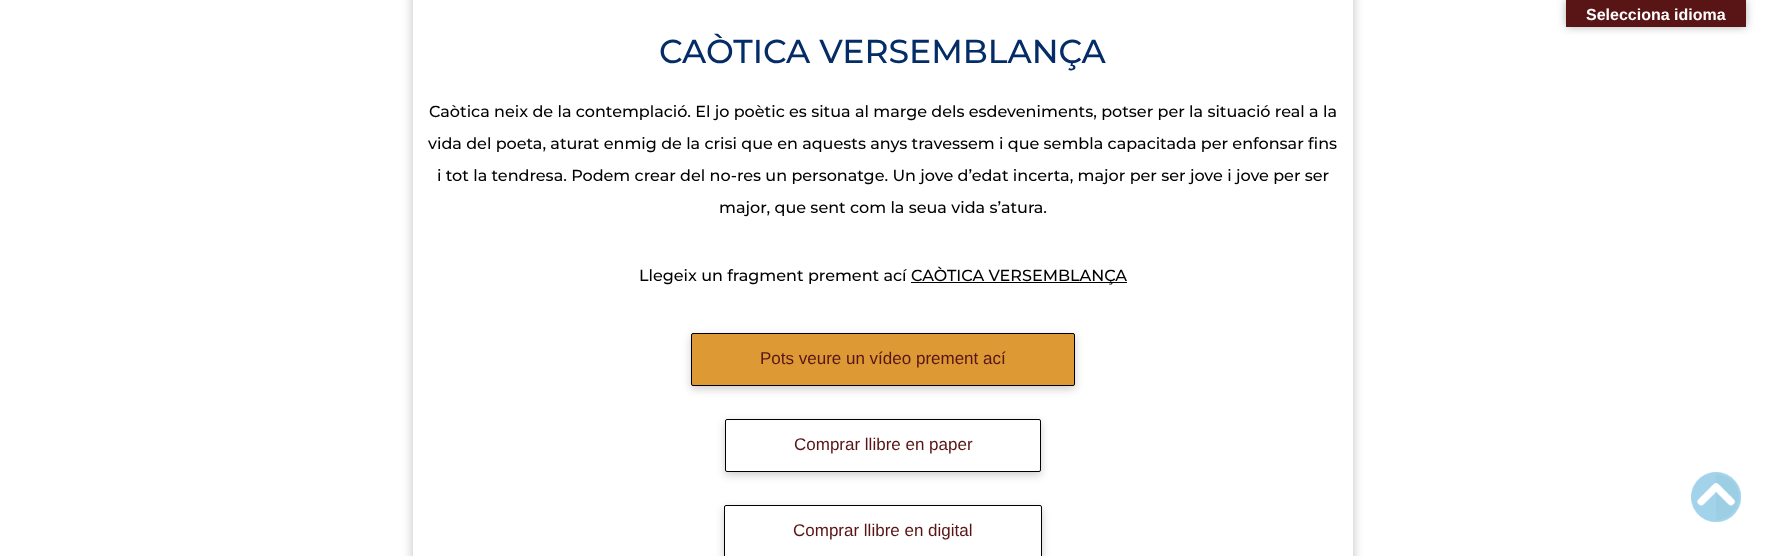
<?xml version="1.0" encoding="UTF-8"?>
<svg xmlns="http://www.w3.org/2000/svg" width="1766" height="556">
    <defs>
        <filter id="blur1" x="-50%" y="-200%" width="200%" height="500%"><feGaussianBlur stdDeviation="4.5"/></filter>
        <clipPath id="clip1"><path d="M 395 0 H 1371 V 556 H 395 Z M 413 -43 H 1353 V 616 H 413 Z" clip-rule="evenodd"/></clipPath>
        <filter id="blur2" x="-50%" y="-200%" width="200%" height="500%"><feGaussianBlur stdDeviation="5.5"/></filter>
        <filter id="blur3" x="-50%" y="-200%" width="200%" height="500%"><feGaussianBlur stdDeviation="4"/></filter>
        <clipPath id="clip2"><path d="M 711 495 H 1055 V 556 H 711 Z M 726 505 H 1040 C 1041 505 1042 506 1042 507 V 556 C 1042 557 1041 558 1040 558 H 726 C 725 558 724 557 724 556 V 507 C 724 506 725 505 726 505 Z" clip-rule="evenodd"/></clipPath>
    </defs>
    <rect width="100%" height="100%" fill="#FFFFFF"/>
    <rect x="1566" y="0" width="180" height="27" fill="#000000" fill-opacity="0.3" filter="url(#blur1)"/>
    <rect x="1566" y="0" width="180" height="27" fill="#591515"/>
    <text x="1586" y="20" font-family="Liberation Sans" font-size="16" font-weight="700" fill="#FFFFFF">Selecciona idioma</text>
    <g clip-path="url(#clip1)">
        <rect x="413" y="-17" width="940" height="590" fill="#000000" fill-opacity="0.25" filter="url(#blur2)"/>
    </g>
    <text x="659" y="63" font-family="Montserrat" font-size="33.1" font-weight="100" fill="#042C67">CAÒTICA VERSEMBLANÇA</text>
    <text x="429" y="117" font-family="Montserrat" font-size="16" font-weight="100" fill="#000000">Caòtica neix de la contemplació. El jo poètic es situa al marge dels esdeveniments, potser per la situació real a la</text>
    <text x="428" y="149" font-family="Montserrat" font-size="16" font-weight="100" fill="#000000">vida del poeta, aturat enmig de la crisi que en aquests anys travessem i que sembla capacitada per enfonsar fins</text>
    <text x="437" y="181" font-family="Montserrat" font-size="16" font-weight="100" fill="#000000">i tot la tendresa. Podem crear del no-res un personatge. Un jove d’edat incerta, major per ser jove i jove per ser</text>
    <text x="719" y="213" font-family="Montserrat" font-size="16" font-weight="100" fill="#000000">major, que sent com la seua vida s’atura.</text>
    <text x="639" y="281" font-family="Montserrat" font-size="16" font-weight="100" fill="#000000">Llegeix un fragment prement ací</text>
    <rect x="911" y="282" width="216" height="1" fill="#000000"/>
    <text x="911" y="281" font-family="Montserrat" font-size="16" font-weight="100" fill="#000000">CAÒTICA VERSEMBLANÇA</text>
    <rect x="691" y="336" width="384" height="53" rx="2" fill="#000000" fill-opacity="0.2" filter="url(#blur3)"/>
    <rect x="691.5" y="333.5" width="383" height="52" rx="1.5" fill="#DD9933" stroke="#000000"/>
    <text x="760" y="364" font-family="Liberation Sans" font-size="17" fill="#591515">Pots veure un vídeo prement ací</text>
    <rect x="725" y="422" width="316" height="53" rx="2" fill="#000000" fill-opacity="0.2" filter="url(#blur3)"/>
    <rect x="725.5" y="419.5" width="315" height="52" rx="1.5" fill="#FFFFFF" stroke="#000000"/>
    <text x="794" y="450" font-family="Liberation Sans" font-size="17" fill="#591515">Comprar llibre en paper</text>
    <g clip-path="url(#clip2)">
        <rect x="724" y="508" width="318" height="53" rx="2" fill="#000000" fill-opacity="0.2" filter="url(#blur3)"/>
    </g>
    <rect x="724.5" y="505.5" width="317" height="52" rx="1.5" fill="none" stroke="#000000"/>
    <text x="793" y="536" font-family="Liberation Sans" font-size="17" fill="#591515">Comprar llibre en digital</text>
    <image x="1691" y="472" width="50" height="50" href="img_01.png"/>
</svg>
